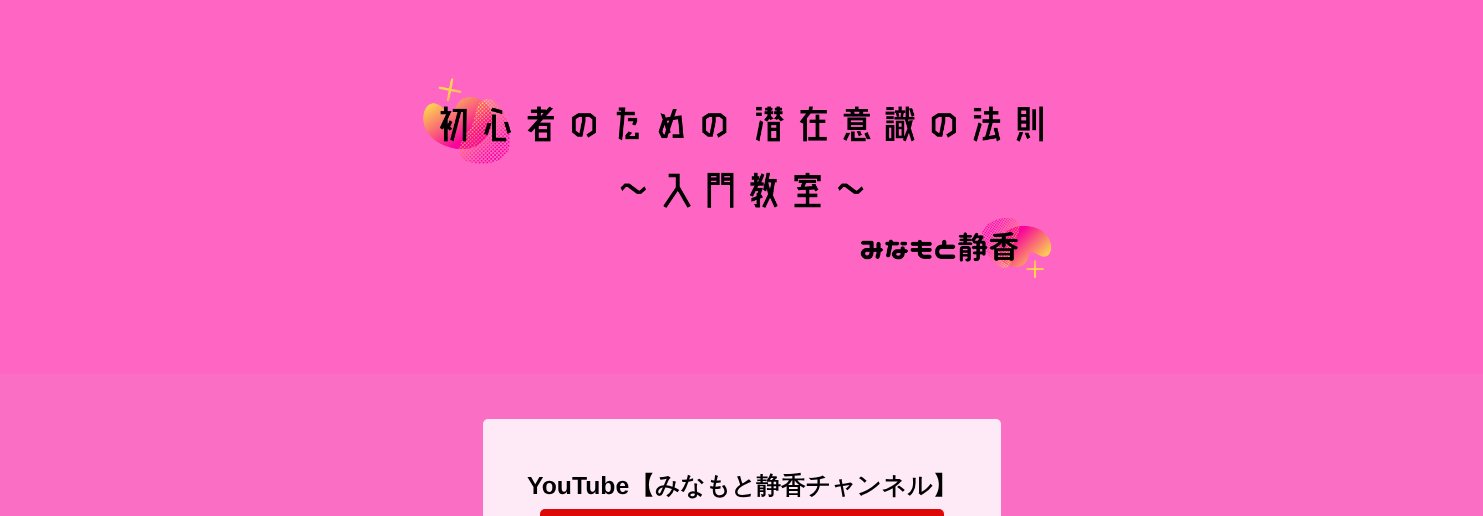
<?xml version="1.0" encoding="UTF-8"?>
<svg xmlns="http://www.w3.org/2000/svg" width="1483" height="516">
    <rect width="100%" height="100%" fill="#FF66C4"/>
    <image x="423" y="78" width="629" height="200" href="img_01.png"/>
    <rect x="0" y="374" width="1483" height="142" fill="#FA6EC4"/>
    <rect x="483" y="419" width="518" height="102" rx="5" fill="#FEE9F6"/>
    <text x="527" y="494" font-family="Liberation Sans" font-size="24.75" font-weight="700" fill="#000000">YouTube</text>
    <text x="630" y="494" font-family="WenQuanYi Zen Hei" font-size="24.75" font-weight="700" fill="#000000">【みなもと静香チャンネル】</text>
    <rect x="540" y="509" width="404" height="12" rx="5" fill="#DD0808"/>
</svg>
